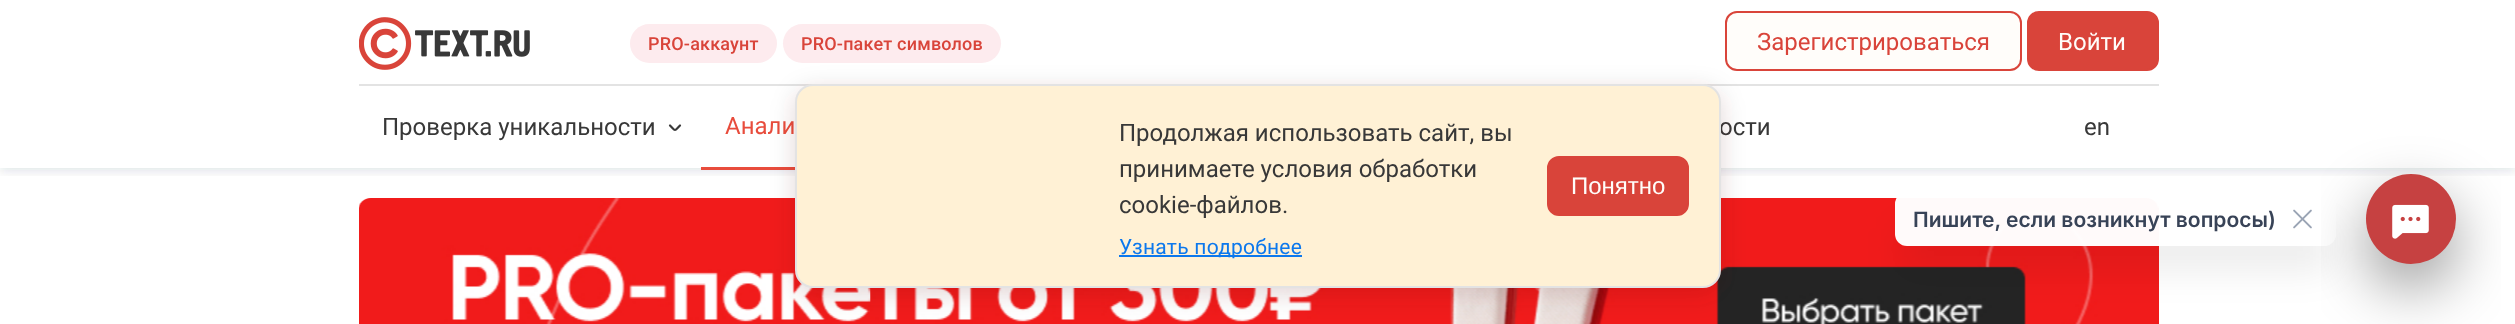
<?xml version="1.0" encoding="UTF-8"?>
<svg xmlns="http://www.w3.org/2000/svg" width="2515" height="324">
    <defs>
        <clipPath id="clip1"><rect x="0" y="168" width="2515" height="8"/></clipPath>
        <filter id="blur1" x="-50%" y="-200%" width="200%" height="500%"><feGaussianBlur stdDeviation="6"/></filter>
        <filter id="blur2" x="-50%" y="-200%" width="200%" height="500%"><feGaussianBlur stdDeviation="12"/></filter>
        <clipPath id="clip2"><path d="M 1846 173 H 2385 V 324 H 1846 Z M 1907 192 H 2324 C 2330.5 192 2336 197.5 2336 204 V 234 C 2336 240.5 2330.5 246 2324 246 H 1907 C 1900.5 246 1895 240.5 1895 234 V 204 C 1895 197.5 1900.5 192 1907 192 Z" clip-rule="evenodd"/></clipPath>
        <filter id="blur3" x="-50%" y="-200%" width="200%" height="500%"><feGaussianBlur stdDeviation="18"/></filter>
        <filter id="blur4" x="-50%" y="-200%" width="200%" height="500%"><feGaussianBlur stdDeviation="30"/></filter>
    </defs>
    <rect width="100%" height="100%" fill="#FFFFFF"/>
    <g clip-path="url(#clip1)">
        <rect x="0" y="2" width="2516" height="168" fill="#162C46" fill-opacity="0.14" filter="url(#blur1)"/>
    </g>
    <image x="359" y="17" width="171" height="53" href="img_01.png"/>
    <rect x="630" y="24" width="147" height="39" rx="19.5" fill="#FDEBEE"/>
    <text x="648" y="50" font-family="Roboto" font-size="18" font-weight="500" letter-spacing="0.2" fill="#D9443A">PRO-аккаунт</text>
    <rect x="783" y="24" width="218" height="39" rx="19.5" fill="#FDEBEE"/>
    <text x="801" y="50" font-family="Roboto" font-size="18" font-weight="500" letter-spacing="0.2" fill="#D9443A">PRO-пакет символов</text>
    <rect x="1726" y="12" width="295" height="58" rx="11" fill="#FFFDFA" stroke="#D9443A" stroke-width="2"/>
    <text x="1757" y="50" font-family="Roboto" font-size="24" fill="#D9443A">Зарегистрироваться</text>
    <rect x="2028" y="12" width="130" height="58" rx="11" fill="#D9443A" stroke="#D9443A" stroke-width="2"/>
    <text x="2058" y="50" font-family="Roboto" font-size="24" fill="#FFFDFA">Войти</text>
    <rect x="359" y="84" width="1800" height="2" fill="#E3E3E3"/>
    <path d="M 680 125.5 C 674 131.5 676 131.5 670 125.5" fill="none" stroke="#3A3A3A" stroke-width="2.2" stroke-linecap="round" stroke-linejoin="round"/>
    <text x="382" y="135" font-family="Roboto" font-size="24" fill="#383838">Проверка уникальности</text>
    <text x="725" y="134" font-family="Roboto" font-size="24" fill="#E84C3C">Анали</text>
    <rect x="701" y="167" width="94" height="3" fill="#E84C3C"/>
    <text x="1719" y="135" font-family="Roboto" font-size="24" fill="#383838">ости</text>
    <text x="2084" y="135" font-family="Roboto" font-size="24" fill="#383838">en</text>
    <image x="359" y="198" width="1800" height="126" href="img_02.png"/>
    <rect x="795" y="90" width="926" height="204" rx="18" fill="#4C1414" fill-opacity="0.16" filter="url(#blur2)"/>
    <rect x="796" y="85" width="924" height="202" rx="17" fill="#FFF1D5" stroke="#E3E3E3" stroke-width="2"/>
    <text font-family="Roboto" font-size="24" fill="#383838">
        <tspan x="1119" y="141">Продолжая использовать сайт, вы</tspan>
        <tspan x="1119" y="177">принимаете условия обработки</tspan>
        <tspan x="1119" y="213">cookie-файлов.</tspan>
    </text>
    <rect x="1119" y="255" width="183" height="2" fill="#0C78ED"/>
    <text x="1119" y="254" font-family="Roboto" font-size="21" letter-spacing="0.25" fill="#0C78ED">Узнать подробнее</text>
    <rect x="1548" y="157" width="140" height="58" rx="11" fill="#D9443A" stroke="#D9443A" stroke-width="2"/>
    <text x="1571" y="194" font-family="Liberation Sans" font-size="24" fill="#FFFDFA">Понятно</text>
    <g clip-path="url(#clip2)">
        <rect x="1901" y="228" width="429" height="42" rx="6" fill="#101828" fill-opacity="0.08" filter="url(#blur3)"/>
    </g>
    <rect x="1895" y="192" width="441" height="54" rx="12" fill="#FFFFFF" fill-opacity="0.98"/>
    <text x="1913" y="227" font-family="Inter" font-size="21" font-weight="600" fill="#384357">Пишите, если возникнут вопросы)</text>
    <image x="2293" y="209" width="19" height="20" href="img_03.png"/>
    <rect x="2366" y="198" width="90" height="90" rx="45" fill="#000000" fill-opacity="0.4" filter="url(#blur4)"/>
    <circle cx="2411" cy="219" r="45" fill="#C64141"/>
    <image x="2392" y="204" width="37" height="35" href="img_04.png"/>
</svg>
